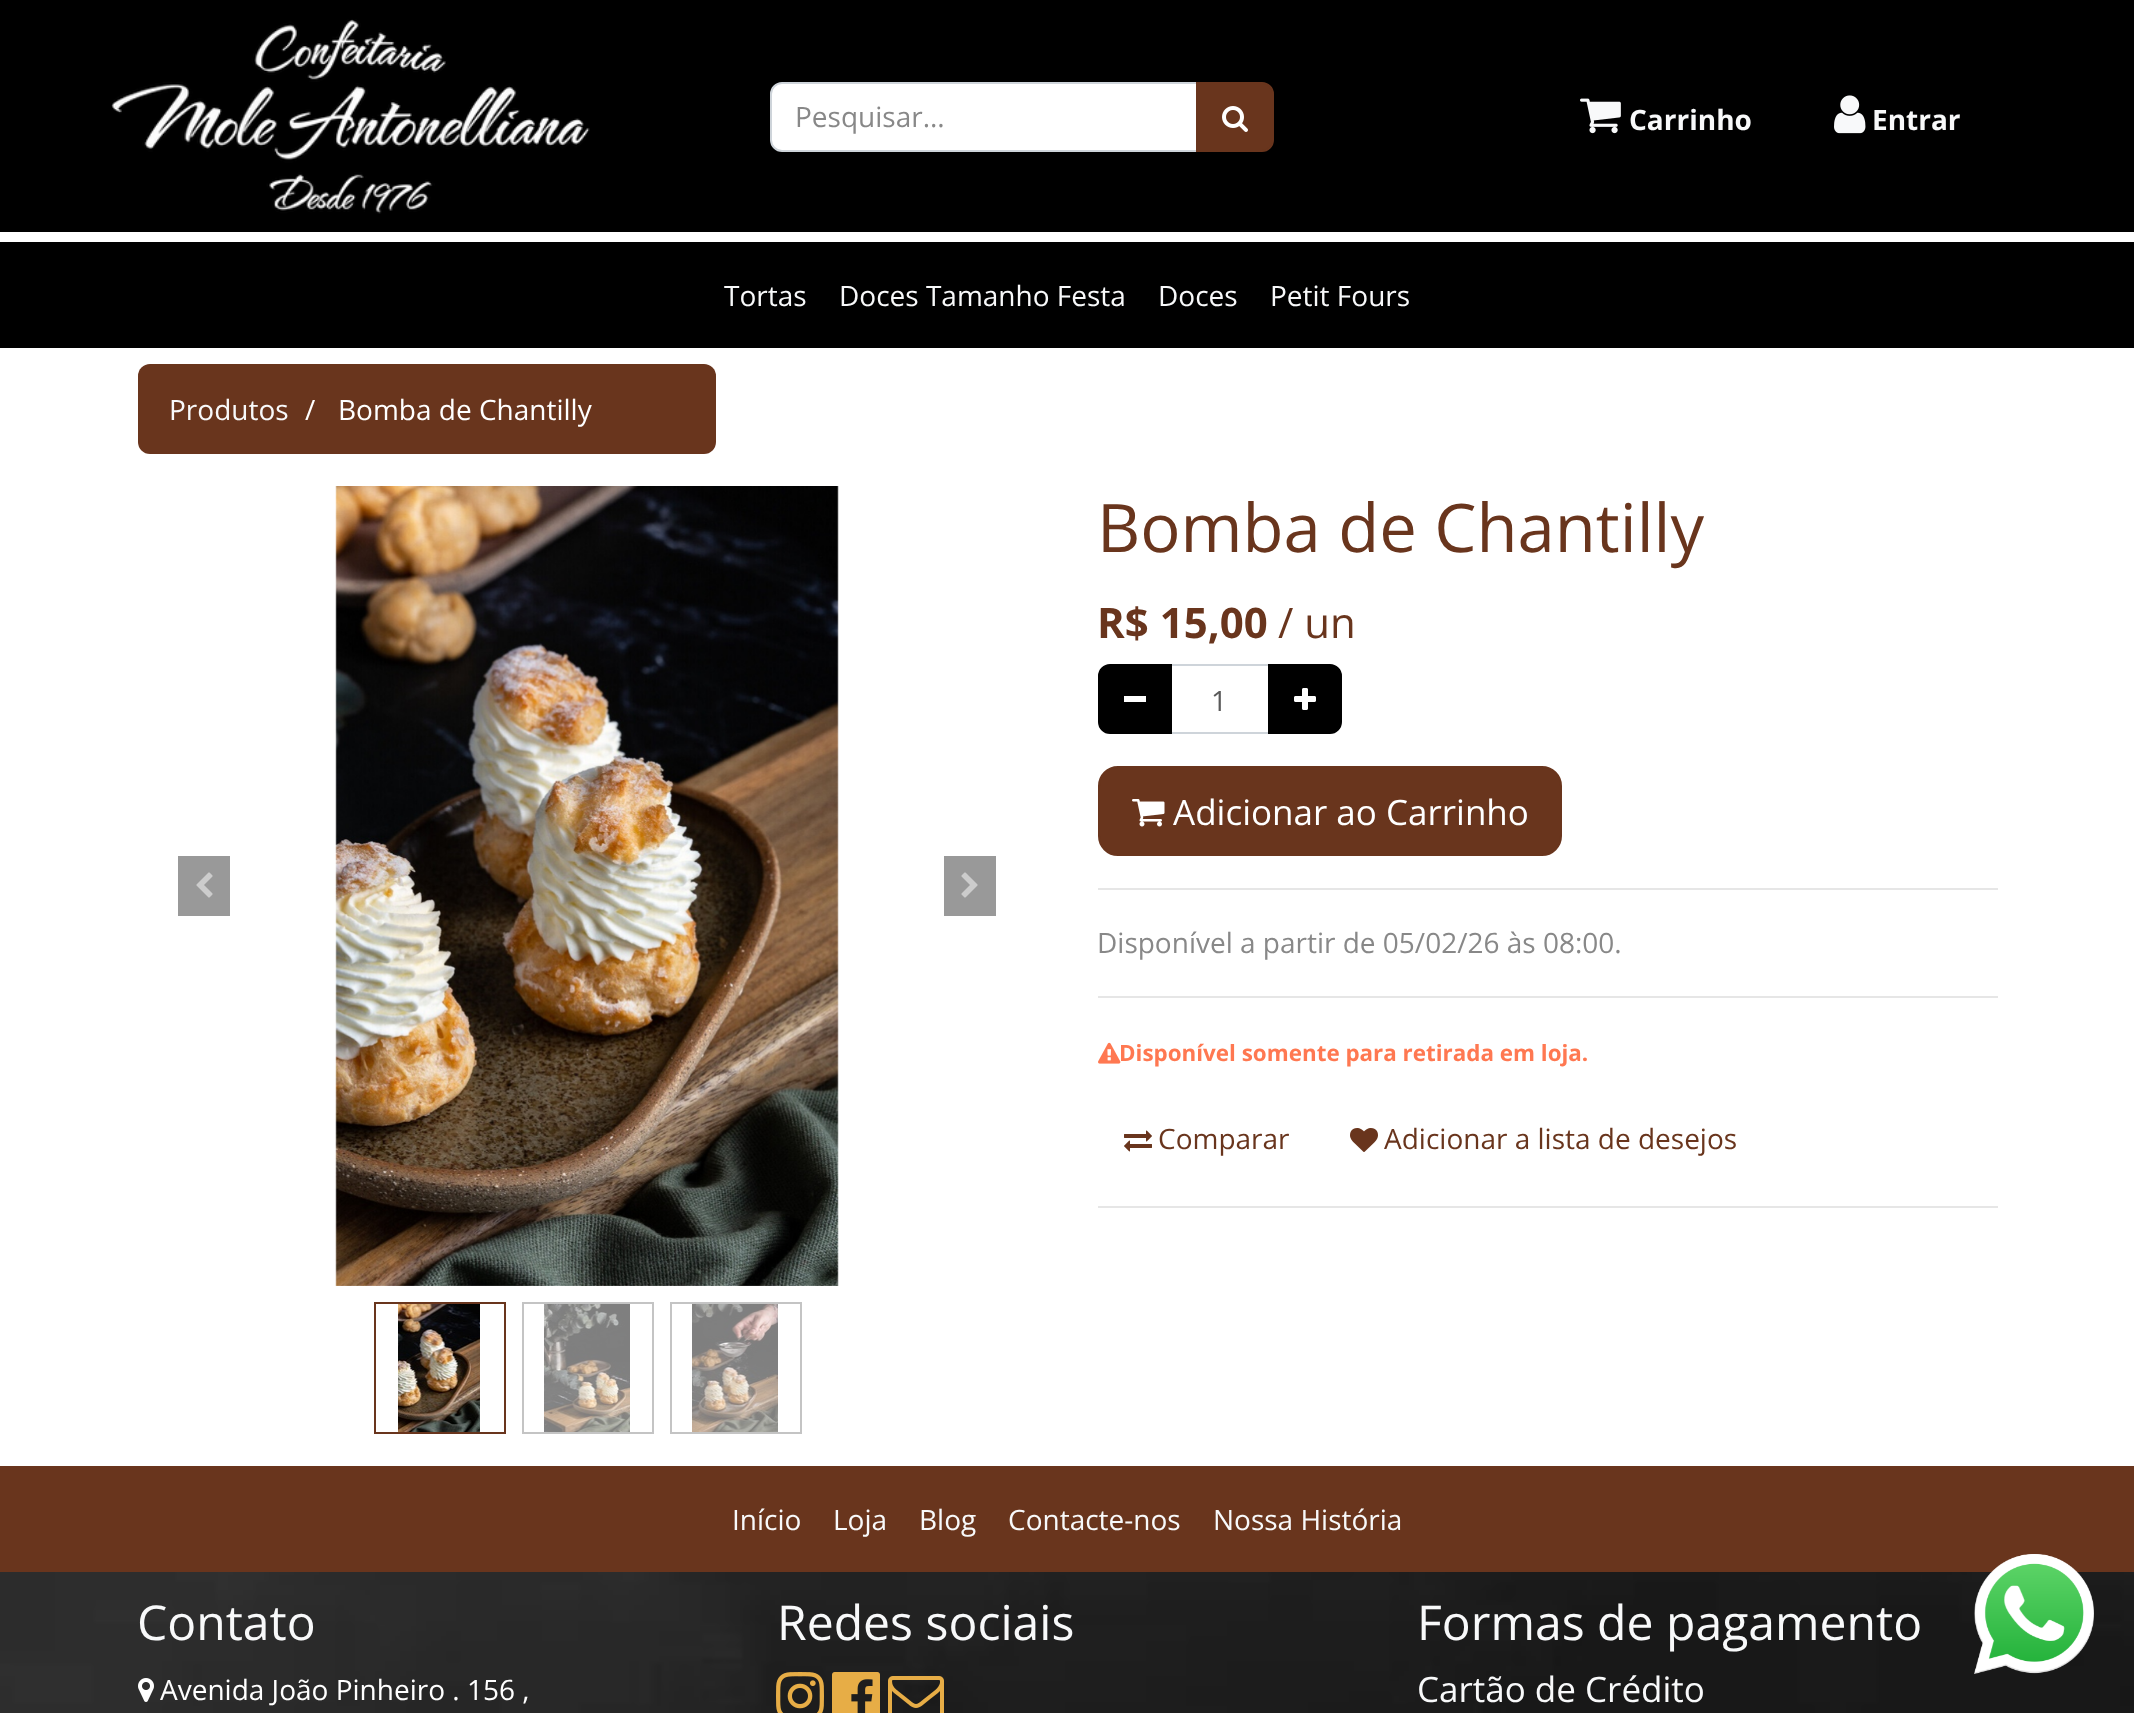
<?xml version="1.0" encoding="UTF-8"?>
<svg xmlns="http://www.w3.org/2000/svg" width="2134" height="1713">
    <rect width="100%" height="100%" fill="#FFFFFF"/>
    <rect x="0" y="0" width="2134" height="232" fill="#000000"/>
    <image x="111" y="19" width="479" height="195" href="img_01.png"/>
    <path d="M 782 83 H 1197 V 151 H 782 C 776 151 771 146 771 140 V 94 C 771 88 776 83 782 83 Z" fill="#FFFFFF" stroke="#CED4DA" stroke-width="2"/>
    <text x="795" y="127" font-family="Open Sans" font-size="28" fill="#888888">Pesquisar...</text>
    <path d="M 1197 83 H 1262 C 1268 83 1273 88 1273 94 V 140 C 1273 146 1268 151 1262 151 H 1197 Z" fill="#69351D" stroke="#69351D" stroke-width="2"/>
    <image x="1222" y="106" width="26" height="26" href="img_02.png"/>
    <image x="1580" y="98" width="41" height="36" href="img_03.png"/>
    <text x="1629" y="130" font-family="Open Sans" font-size="28" font-weight="700" fill="#F8F9FA">Carrinho</text>
    <image x="1834" y="95" width="32" height="39" href="img_04.png"/>
    <text x="1872" y="130" font-family="Open Sans" font-size="28" font-weight="700" fill="#F8F9FA">Entrar</text>
    <rect x="0" y="242" width="2134" height="106" fill="#000000"/>
    <text x="724" y="306" font-family="Open Sans" font-size="28" fill="#F8F9FA">Tortas</text>
    <text x="839" y="306" font-family="Open Sans" font-size="28" fill="#F8F9FA">Doces Tamanho Festa</text>
    <text x="1158" y="306" font-family="Open Sans" font-size="28" fill="#F8F9FA">Doces</text>
    <text x="1270" y="306" font-family="Open Sans" font-size="28" fill="#F8F9FA">Petit Fours</text>
    <rect x="138" y="364" width="578" height="90" rx="12" fill="#69351D"/>
    <text x="169" y="420" font-family="Open Sans" font-size="28" fill="#F8F9FA">Produtos</text>
    <text x="305" y="420" font-family="Open Sans" font-size="28" fill="#FFFFFF">/</text>
    <text x="338" y="420" font-family="Open Sans" font-size="28" fill="#FFFFFF">Bomba de Chantilly</text>
    <rect x="178" y="856" width="52" height="60" fill="#999999"/>
    <image x="196" y="872" width="17" height="26" href="img_05.png"/>
    <image x="335" y="486" width="504" height="800" href="img_06.png"/>
    <rect x="944" y="856" width="52" height="60" fill="#999999"/>
    <image x="961" y="872" width="17" height="26" href="img_07.png"/>
    <rect x="375" y="1303" width="130" height="130" fill="none" stroke="#69351D" stroke-width="2"/>
    <image x="398" y="1304" width="82" height="128" href="img_08.png"/>
    <rect x="523" y="1303" width="130" height="130" fill="none" stroke="#C4C4C4" stroke-width="2"/>
    <image x="544" y="1304" width="86" height="128" href="img_09.png"/>
    <rect x="671" y="1303" width="130" height="130" fill="none" stroke="#C4C4C4" stroke-width="2"/>
    <image x="692" y="1304" width="86" height="128" href="img_10.png"/>
    <text x="1097" y="552" font-family="Open Sans" font-size="67" fill="#69351D">Bomba de Chantilly</text>
    <text x="1097" y="638" font-family="Open Sans" font-size="42" font-weight="700" fill="#69351D">R$ 15,00</text>
    <text x="1278" y="638" font-family="Open Sans" font-size="42" fill="#69351D">/ un</text>
    <rect x="1171" y="665" width="98" height="68" fill="none" stroke="#CED4DA" stroke-width="2"/>
    <path d="M 1110 665 H 1171 V 733 H 1110 C 1104 733 1099 728 1099 722 V 676 C 1099 670 1104 665 1110 665 Z" fill="#000000" stroke="#000000" stroke-width="2"/>
    <rect x="1124" y="696" width="22" height="6" fill="#FFFFFF"/>
    <text x="1211" y="711" font-family="Open Sans" font-size="28" fill="#5A5A5A">1</text>
    <path d="M 1269 665 H 1330 C 1336 665 1341 670 1341 676 V 722 C 1341 728 1336 733 1330 733 H 1269 Z" fill="#000000" stroke="#000000" stroke-width="2"/>
    <image x="1294" y="688" width="22" height="22" href="img_11.png"/>
    <rect x="1099" y="767" width="462" height="88" rx="19" fill="#69351D" stroke="#69351D" stroke-width="2"/>
    <image x="1132" y="799" width="33" height="28" href="img_12.png"/>
    <text x="1173" y="825" font-family="Open Sans" font-size="35" fill="#FFFFFF">Adicionar ao Carrinho</text>
    <rect x="1098" y="888" width="900" height="2" fill="#E6E6E6"/>
    <text x="1097" y="953" font-family="Open Sans" font-size="28" fill="#888888">Disponível a partir de 05/02/26 às 08:00.</text>
    <rect x="1098" y="996" width="900" height="2" fill="#E6E6E6"/>
    <image x="1098" y="1042" width="23" height="22" href="img_13.png"/>
    <text x="1119" y="1061" font-family="Open Sans" font-size="22.4" font-weight="700" fill="#FF7851">Disponível somente para retirada em loja.</text>
    <image x="1124" y="1130" width="28" height="22" href="img_14.png"/>
    <text x="1158" y="1149" font-family="Open Sans" font-size="28" fill="#69351D">Comparar</text>
    <image x="1350" y="1128" width="28" height="24" href="img_15.png"/>
    <text x="1384" y="1149" font-family="Open Sans" font-size="28" fill="#69351D">Adicionar a lista de desejos</text>
    <rect x="1098" y="1206" width="900" height="2" fill="#E6E6E6"/>
    <rect x="0" y="1466" width="2134" height="106" fill="#69351D"/>
    <text x="732" y="1530" font-family="Open Sans" font-size="28" fill="#F8F9FA">Início</text>
    <text x="833" y="1530" font-family="Open Sans" font-size="28" fill="#F8F9FA">Loja</text>
    <text x="919" y="1530" font-family="Open Sans" font-size="28" fill="#F8F9FA">Blog</text>
    <text x="1008" y="1530" font-family="Open Sans" font-size="28" fill="#F8F9FA">Contacte-nos</text>
    <text x="1213" y="1530" font-family="Open Sans" font-size="28" fill="#F8F9FA">Nossa História</text>
    <image x="0" y="1572" width="2134" height="141" href="img_16.png"/>
    <text x="137" y="1640" font-family="Open Sans" font-size="48.1" fill="#F8F9FA">Contato</text>
    <image x="138" y="1678" width="16" height="24" href="img_17.png"/>
    <text x="160" y="1700" font-family="Open Sans" font-size="28" fill="#FFFFFF">Avenida João Pinheiro . 156 ,</text>
    <text x="777" y="1640" font-family="Open Sans" font-size="48.1" fill="#F8F9FA">Redes sociais</text>
    <image x="776" y="1672" width="48" height="41" href="img_18.png"/>
    <image x="832" y="1672" width="48" height="41" href="img_19.png"/>
    <image x="888" y="1676" width="56" height="37" href="img_20.png"/>
    <text x="1417" y="1640" font-family="Open Sans" font-size="48.1" fill="#F8F9FA">Formas de pagamento</text>
    <text x="1417" y="1702" font-family="Open Sans" font-size="35" fill="#F8F9FA">Cartão de Crédito</text>
    <image x="1974" y="1554" width="120" height="120" href="img_21.png"/>
</svg>
